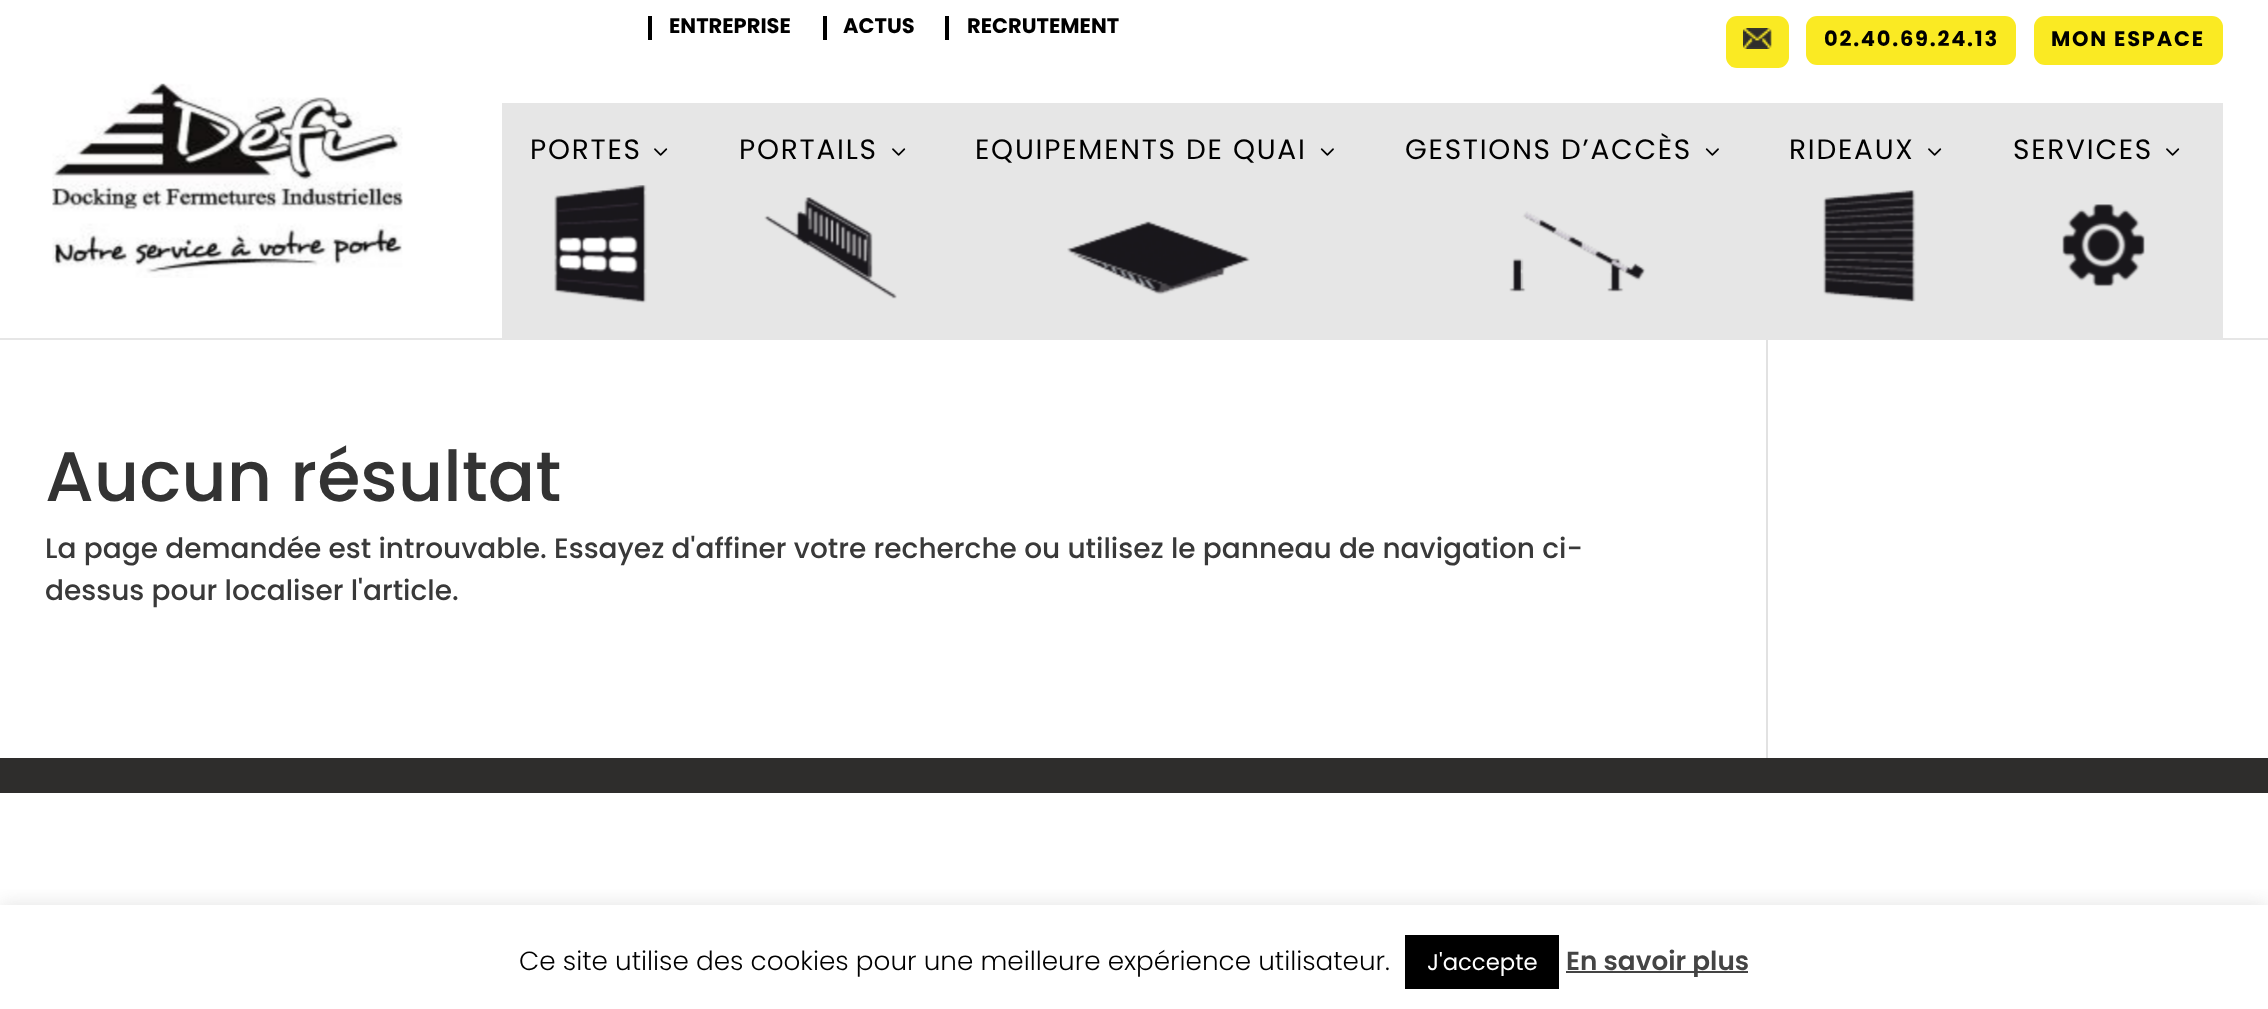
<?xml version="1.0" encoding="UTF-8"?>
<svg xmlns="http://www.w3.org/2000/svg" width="2268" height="1009">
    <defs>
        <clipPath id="clip1"><rect x="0" y="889" width="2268" height="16"/></clipPath>
        <filter id="blur1" x="-50%" y="-200%" width="200%" height="500%"><feGaussianBlur stdDeviation="9"/></filter>
    </defs>
    <rect width="100%" height="100%" fill="#FFFFFF"/>
    <rect x="648" y="16" width="4" height="24" fill="#000000"/>
    <text x="669" y="33" font-family="Poppins" font-size="21" font-weight="700" fill="#000000">ENTREPRISE</text>
    <rect x="823" y="16" width="4" height="24" fill="#000000"/>
    <text x="843" y="33" font-family="Poppins" font-size="21" font-weight="700" fill="#000000">ACTUS</text>
    <rect x="945" y="16" width="4" height="24" fill="#000000"/>
    <text x="967" y="33" font-family="Poppins" font-size="21" font-weight="700" fill="#000000">RECRUTEMENT</text>
    <rect x="1726" y="16" width="63" height="52" rx="11" fill="#FAEA23"/>
    <image x="1743" y="28" width="29" height="21" href="img_01.png"/>
    <rect x="1806" y="16" width="210" height="49" rx="11" fill="#FAEA23"/>
    <text x="1824" y="46" font-family="Poppins" font-size="21" font-weight="700" letter-spacing="1.75" fill="#000000">02.40.69.24.13</text>
    <rect x="2034" y="16" width="189" height="49" rx="11" fill="#FAEA23"/>
    <text x="2051" y="46" font-family="Poppins" font-size="21" font-weight="700" letter-spacing="1.75" fill="#000000">MON ESPACE</text>
    <rect x="0" y="338" width="2268" height="2" fill="#E6E6E6"/>
    <image x="52" y="83" width="351" height="195" href="img_02.png"/>
    <rect x="502" y="103" width="1721" height="235" fill="#E6E6E6"/>
    <image x="554" y="185" width="93" height="118" href="img_03.png"/>
    <text x="530" y="159" font-family="Poppins" font-size="28" letter-spacing="1.75" fill="#000000">PORTES</text>
    <image x="654" y="148" width="14" height="8" href="img_04.png"/>
    <image x="764" y="197" width="133" height="102" href="img_05.png"/>
    <text x="739" y="159" font-family="Poppins" font-size="28" letter-spacing="1.75" fill="#000000">PORTAILS</text>
    <image x="892" y="148" width="14" height="8" href="img_04.png"/>
    <image x="1067" y="221" width="183" height="74" href="img_06.png"/>
    <text x="975" y="159" font-family="Poppins" font-size="28" letter-spacing="1.75" fill="#000000">EQUIPEMENTS DE QUAI</text>
    <image x="1320" y="148" width="14" height="8" href="img_07.png"/>
    <image x="1509" y="211" width="137" height="81" href="img_08.png"/>
    <text x="1405" y="159" font-family="Poppins" font-size="28" letter-spacing="1.75" fill="#000000">GESTIONS D’ACCÈS</text>
    <image x="1705" y="148" width="14" height="8" href="img_07.png"/>
    <image x="1823" y="190" width="93" height="112" href="img_09.png"/>
    <text x="1789" y="159" font-family="Poppins" font-size="28" letter-spacing="1.75" fill="#000000">RIDEAUX</text>
    <image x="1928" y="148" width="14" height="8" href="img_04.png"/>
    <image x="2062" y="204" width="83" height="83" href="img_10.png"/>
    <text x="2013" y="159" font-family="Poppins" font-size="28" letter-spacing="1.75" fill="#000000">SERVICES</text>
    <image x="2166" y="148" width="14" height="8" href="img_04.png"/>
    <text x="45" y="501" font-family="Poppins" font-size="70" font-weight="500" fill="#333333">Aucun résultat</text>
    <text font-family="Poppins" font-size="28" font-weight="500" fill="#393939">
        <tspan x="45" y="558">La page demandée est introuvable. Essayez d'affiner votre recherche ou utilisez le panneau de navigation ci-</tspan>
        <tspan x="45" y="600">dessus pour localiser l'article.</tspan>
    </text>
    <rect x="1766" y="340" width="2" height="418" fill="#E2E2E2"/>
    <rect x="0" y="758" width="2268" height="35" fill="#2E2D2C"/>
    <g clip-path="url(#clip1)">
        <rect x="0" y="903" width="2268" height="105" fill="#ACABAB" fill-opacity="0.3" filter="url(#blur1)"/>
    </g>
    <text x="519" y="970" font-family="Poppins" font-size="26.25" font-weight="300" fill="#000000">Ce site utilise des cookies pour une meilleure expérience utilisateur.</text>
    <rect x="1405" y="935" width="154" height="54" fill="#000000"/>
    <text x="1427" y="970" font-family="Poppins" font-size="22.75" fill="#FFFFFF">J'accepte</text>
    <rect x="1566" y="971" width="182" height="2" fill="#444444"/>
    <text x="1566" y="970" font-family="Poppins" font-size="26.25" font-weight="600" fill="#444444">En savoir plus</text>
</svg>
